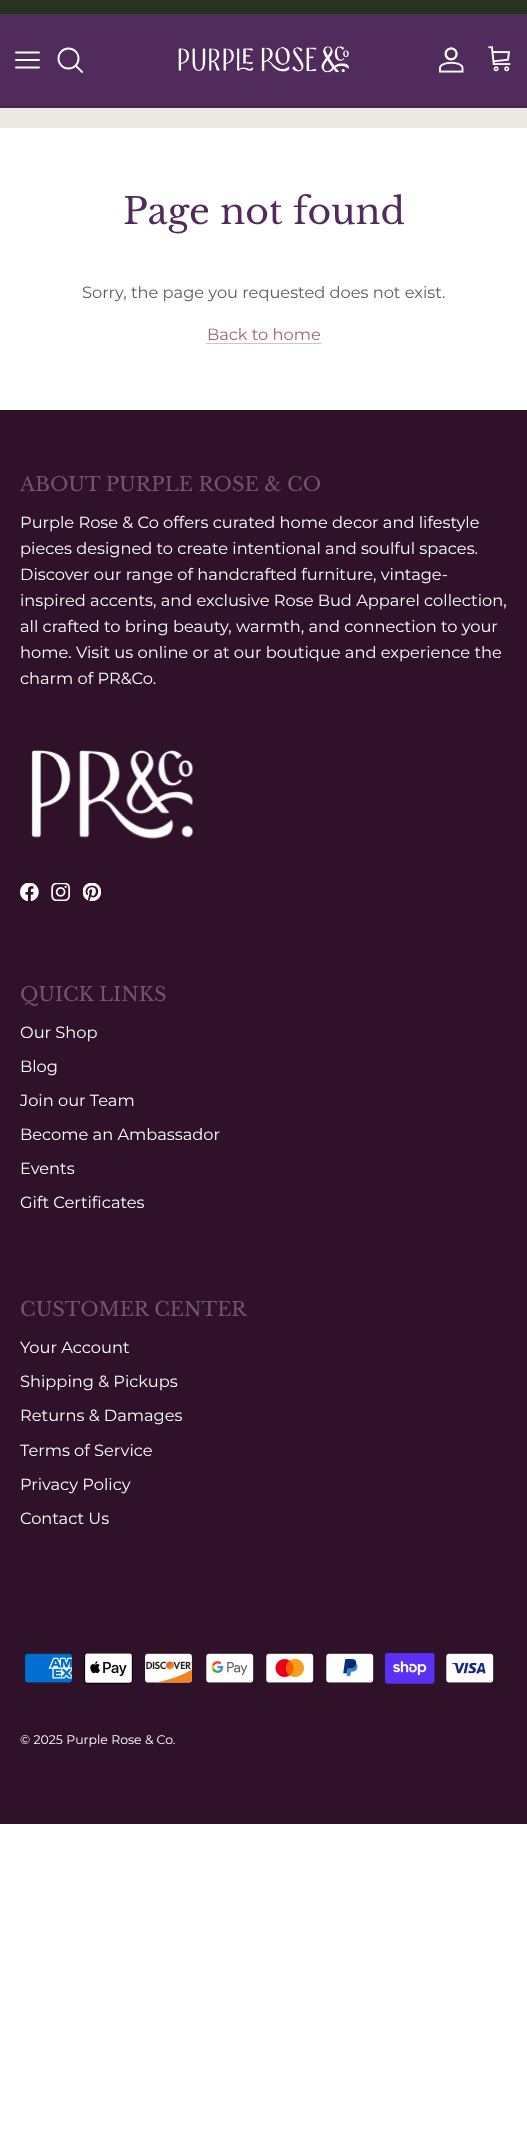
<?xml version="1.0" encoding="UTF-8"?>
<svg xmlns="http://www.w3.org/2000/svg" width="527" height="2135">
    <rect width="100%" height="100%" fill="#FFFFFF"/>
    <rect x="0" y="0" width="527" height="14" fill="#253320"/>
    <rect x="0" y="14" width="527" height="94" fill="#512B5B"/>
    <rect x="0" y="106" width="527" height="1" fill="#411F42"/>
    <path d="M 16 60 H 39 M 16 52.5 H 39 M 16 67.5 H 39" fill="none" stroke="#FFFFFF" stroke-width="1.9" stroke-linecap="round" stroke-linejoin="round"/>
    <circle cx="68.5" cy="58.5" r="10" fill="none" stroke="#FFFFFF" stroke-width="1.9"/>
    <path d="M 76 66 L 82 72" fill="none" stroke="#FFFFFF" stroke-width="1.9" stroke-linecap="square"/>
    <image x="178" y="46" width="171" height="27" href="img_01.png"/>
    <image x="439" y="47" width="25" height="26" href="img_02.png"/>
    <image x="488" y="46" width="23" height="26" href="img_03.png"/>
    <rect x="0" y="108" width="527" height="20" fill="#EEE8E4"/>
    <text x="123" y="224" font-family="Libre Baskerville" font-size="36.25" fill="#512B5B">Page not found</text>
    <text x="82" y="298" font-family="Montserrat" font-size="16.25" font-weight="100" fill="#5C5C5C">Sorry, the page you requested does not exist.</text>
    <text x="207" y="340" font-family="Montserrat" font-size="16.25" font-weight="100" fill="#936778">Back to home</text>
    <rect x="206" y="343" width="115" height="1" fill="#D4C2C9"/>
    <rect x="0" y="410" width="527" height="1414" fill="#2F122A"/>
    <text x="20" y="491" font-family="Libre Baskerville" font-size="19.5" fill="#775172">ABOUT PURPLE ROSE &amp; CO</text>
    <text font-family="Montserrat" font-size="16.25" font-weight="100" fill="#FFFFFF">
        <tspan x="20" y="528">Purple Rose &amp; Co offers curated home decor and lifestyle</tspan>
        <tspan x="20" y="554">pieces designed to create intentional and soulful spaces.</tspan>
        <tspan x="20" y="580">Discover our range of handcrafted furniture, vintage-</tspan>
        <tspan x="20" y="606">inspired accents, and exclusive Rose Bud Apparel collection,</tspan>
        <tspan x="20" y="632">all crafted to bring beauty, warmth, and connection to your</tspan>
        <tspan x="20" y="658">home. Visit us online or at our boutique and experience the</tspan>
        <tspan x="20" y="684">charm of PR&amp;Co.</tspan>
    </text>
    <image x="31" y="749" width="163" height="90" href="img_04.png"/>
    <image x="20" y="883" width="19" height="18" href="img_05.png"/>
    <image x="51" y="883" width="19" height="18" href="img_06.png"/>
    <image x="83" y="883" width="18" height="18" href="img_07.png"/>
    <text x="20" y="1001" font-family="Libre Baskerville" font-size="19.5" fill="#775172">QUICK LINKS</text>
    <text x="20" y="1038" font-family="Montserrat" font-size="16.25" font-weight="100" fill="#FFFFFF">Our Shop</text>
    <text x="20" y="1072" font-family="Montserrat" font-size="16.25" font-weight="100" fill="#FFFFFF">Blog</text>
    <text x="20" y="1106" font-family="Montserrat" font-size="16.25" font-weight="100" fill="#FFFFFF">Join our Team</text>
    <text x="20" y="1140" font-family="Montserrat" font-size="16.25" font-weight="100" fill="#FFFFFF">Become an Ambassador</text>
    <text x="20" y="1174" font-family="Montserrat" font-size="16.25" font-weight="100" fill="#FFFFFF">Events</text>
    <text x="20" y="1208" font-family="Montserrat" font-size="16.25" font-weight="100" fill="#FFFFFF">Gift Certificates</text>
    <text x="20" y="1316" font-family="Libre Baskerville" font-size="19.5" fill="#775172">CUSTOMER CENTER</text>
    <text x="20" y="1353" font-family="Montserrat" font-size="16.25" font-weight="100" fill="#FFFFFF">Your Account</text>
    <text x="20" y="1387" font-family="Montserrat" font-size="16.25" font-weight="100" fill="#FFFFFF">Shipping &amp; Pickups</text>
    <text x="20" y="1421" font-family="Montserrat" font-size="16.25" font-weight="100" fill="#FFFFFF">Returns &amp; Damages</text>
    <text x="20" y="1456" font-family="Montserrat" font-size="16.25" font-weight="100" fill="#FFFFFF">Terms of Service</text>
    <text x="20" y="1490" font-family="Montserrat" font-size="16.25" font-weight="100" fill="#FFFFFF">Privacy Policy</text>
    <text x="20" y="1524" font-family="Montserrat" font-size="16.25" font-weight="100" fill="#FFFFFF">Contact Us</text>
    <image x="25" y="1653" width="47" height="30" href="img_08.png"/>
    <image x="84" y="1653" width="49" height="31" href="img_09.png"/>
    <image x="145" y="1653" width="47" height="30" href="img_10.png"/>
    <image x="206" y="1653" width="48" height="30" href="img_11.png"/>
    <image x="266" y="1653" width="48" height="30" href="img_12.png"/>
    <image x="326" y="1653" width="48" height="30" href="img_13.png"/>
    <image x="385" y="1653" width="50" height="31" href="img_14.png"/>
    <image x="446" y="1653" width="48" height="30" href="img_15.png"/>
    <text x="20" y="1744" font-family="Montserrat" font-size="12.5" font-weight="100" fill="#FFFFFF">© 2025 Purple Rose &amp; Co.</text>
</svg>
